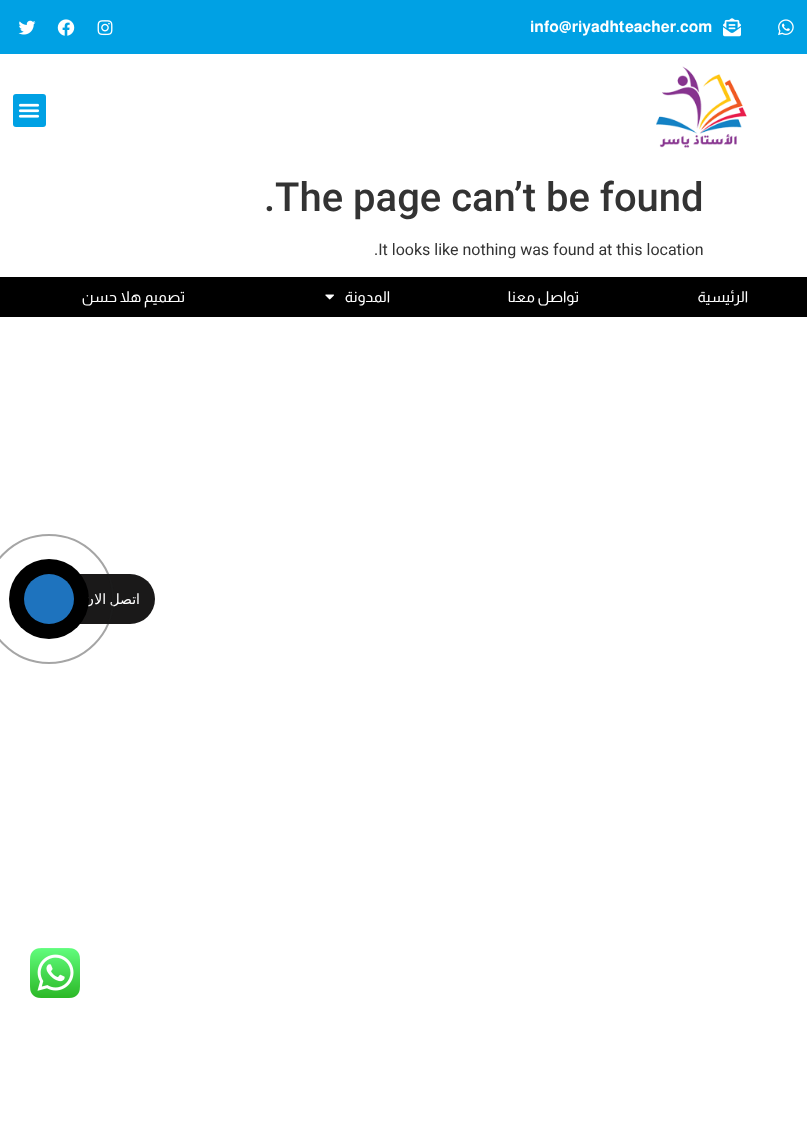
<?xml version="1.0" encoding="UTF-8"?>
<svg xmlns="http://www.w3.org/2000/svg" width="807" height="1148">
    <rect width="100%" height="100%" fill="#FFFFFF"/>
    <rect x="0" y="0" width="807" height="54" fill="#00A1E4"/>
    <image x="18" y="20" width="18" height="15" href="img_01.png"/>
    <image x="57" y="19" width="18" height="17" href="img_02.png"/>
    <image x="97" y="20" width="16" height="16" href="img_03.png"/>
    <text x="530" y="32" font-family="Almarai" font-size="16" font-weight="700" fill="#FFFFFF">info@riyadhteacher.com</text>
    <image x="723" y="18" width="18" height="19" href="img_04.png"/>
    <image x="778" y="19" width="16" height="17" href="img_05.png"/>
    <rect x="13" y="94" width="33" height="33" rx="3" fill="#00A1E4"/>
    <image x="18" y="103" width="22" height="15" href="img_06.png"/>
    <image x="656" y="66" width="91" height="82" href="img_07.png"/>
    <text x="264" y="211" font-family="Roboto" font-size="40" font-weight="500" fill="#333333">.The page can’t be found</text>
    <text x="374" y="255" font-family="Roboto" font-size="16" fill="#333333">.It looks like nothing was found at this location</text>
    <rect x="0" y="277" width="807" height="40" fill="#000000"/>
    <text x="185" y="302" font-family="Almarai" font-size="15" direction="rtl" fill="#FFFFFF">تصميم هلا حسن</text>
    <image x="325" y="294" width="9" height="6" href="img_08.png"/>
    <text x="390" y="302" font-family="Almarai" font-size="15" direction="rtl" fill="#FFFFFF">المدونة</text>
    <text x="579" y="302" font-family="Almarai" font-size="15" direction="rtl" fill="#FFFFFF">تواصل معنا</text>
    <text x="748" y="302" font-family="Almarai" font-size="15" direction="rtl" fill="#FFFFFF">الرئيسية</text>
    <rect x="24" y="574" width="131" height="50" rx="25" fill="#1A1919"/>
    <text x="140" y="604" word-spacing="-1" font-family="DejaVu Sans" font-size="14" direction="rtl" fill="#FFFFFF">اتصل الان</text>
    <circle cx="49" cy="599" r="64" fill="none" stroke="#1E1E1E" stroke-opacity="0.4" stroke-width="2"/>
    <circle cx="49" cy="599" r="40" fill="#000000"/>
    <circle cx="49" cy="599" r="25" fill="#1E73BE"/>
    <image x="30" y="948" width="50" height="50" href="img_09.png"/>
</svg>
